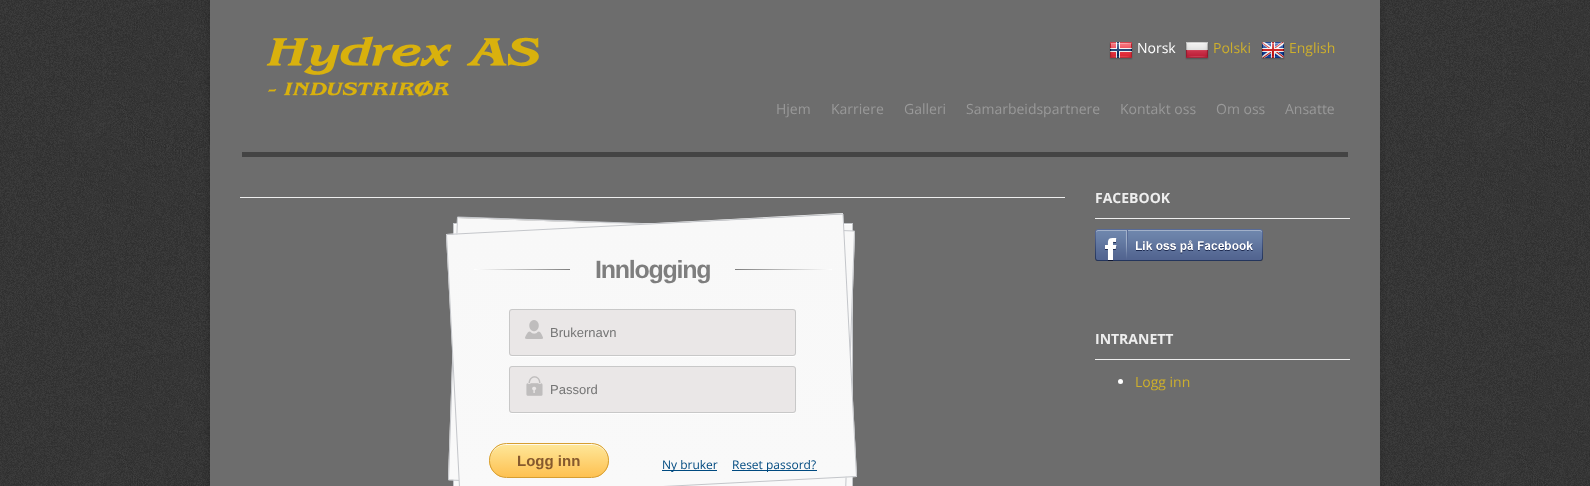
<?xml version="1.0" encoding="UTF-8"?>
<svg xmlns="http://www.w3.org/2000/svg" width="1590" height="486">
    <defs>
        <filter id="blur1" x="-50%" y="-200%" width="200%" height="500%"><feGaussianBlur stdDeviation="5"/></filter>
        <linearGradient id="g1" gradientUnits="userSpaceOnUse" x1="653" y1="224" x2="653" y2="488"><stop offset="0" stop-color="#F8F8F8"/><stop offset="1" stop-color="#F9F9F9"/></linearGradient>
        <linearGradient id="g2" gradientUnits="userSpaceOnUse" x1="665" y1="-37" x2="656" y2="225"><stop offset="0" stop-color="#F8F8F8"/><stop offset="1" stop-color="#F9F9F9"/></linearGradient>
        <linearGradient id="g3" gradientUnits="userSpaceOnUse" x1="656" y1="225" x2="647" y2="486"><stop offset="0" stop-color="#F8F8F8"/><stop offset="1" stop-color="#F9F9F9"/></linearGradient>
        <linearGradient id="g4" gradientUnits="userSpaceOnUse" x1="647" y1="486" x2="638" y2="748"><stop offset="0" stop-color="#F8F8F8"/><stop offset="1" stop-color="#F9F9F9"/></linearGradient>
        <linearGradient id="g5" gradientUnits="userSpaceOnUse" x1="631" y1="-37" x2="645" y2="225"><stop offset="0" stop-color="#F8F8F8"/><stop offset="1" stop-color="#F9F9F9"/></linearGradient>
        <linearGradient id="g6" gradientUnits="userSpaceOnUse" x1="645" y1="225" x2="658" y2="486"><stop offset="0" stop-color="#F8F8F8"/><stop offset="1" stop-color="#F9F9F9"/></linearGradient>
        <linearGradient id="g7" gradientUnits="userSpaceOnUse" x1="658" y1="486" x2="672" y2="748"><stop offset="0" stop-color="#F8F8F8"/><stop offset="1" stop-color="#F9F9F9"/></linearGradient>
        <linearGradient id="g8" gradientUnits="userSpaceOnUse" x1="570" y1="270" x2="474" y2="270"><stop offset="0" stop-color="#7E7E7E"/><stop offset="1" stop-color="#FFFFFF"/></linearGradient>
        <linearGradient id="g9" gradientUnits="userSpaceOnUse" x1="735" y1="270" x2="832" y2="270"><stop offset="0" stop-color="#7E7E7E"/><stop offset="1" stop-color="#FFFFFF"/></linearGradient>
        <clipPath id="clip1"><rect x="489" y="443" width="120" height="35" rx="17.5"/></clipPath>
        <linearGradient id="g10" gradientUnits="userSpaceOnUse" x1="549" y1="444" x2="549" y2="477"><stop offset="0" stop-color="#FEE79A"/><stop offset="1" stop-color="#FEC151"/></linearGradient>
    </defs>
    <rect width="100%" height="100%" fill="#FFFFFF"/>
    <image x="0" y="0" width="1590" height="486" href="img_01.png"/>
    <rect x="210" y="0" width="1170" height="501" fill="#000000" fill-opacity="0.2" filter="url(#blur1)"/>
    <rect x="210" y="0" width="1170" height="486" fill="#6D6D6D"/>
    <rect x="242" y="152" width="1106" height="5" fill="#444444"/>
    <image x="266" y="36" width="273" height="61" href="img_02.png"/>
    <image x="1109" y="42" width="24" height="18" href="img_03.png"/>
    <text x="1137" y="53" font-family="Open Sans" font-size="14" fill="#FFFFFF">Norsk</text>
    <image x="1185" y="42" width="24" height="18" href="img_04.png"/>
    <text x="1213" y="53" font-family="Open Sans" font-size="14" fill="#CDAF2D">Polski</text>
    <image x="1261" y="42" width="24" height="18" href="img_05.png"/>
    <text x="1289" y="53" font-family="Open Sans" font-size="14" fill="#CDAF2D">English</text>
    <text x="776" y="114" font-family="Open Sans" font-size="14" fill="#999999">Hjem</text>
    <text x="831" y="114" font-family="Open Sans" font-size="14" fill="#999999">Karriere</text>
    <text x="904" y="114" font-family="Open Sans" font-size="14" fill="#999999">Galleri</text>
    <text x="966" y="114" font-family="Open Sans" font-size="14" fill="#999999">Samarbeidspartnere</text>
    <text x="1120" y="114" font-family="Open Sans" font-size="14" fill="#999999">Kontakt oss</text>
    <text x="1216" y="114" font-family="Open Sans" font-size="14" fill="#999999">Om oss</text>
    <text x="1285" y="114" font-family="Open Sans" font-size="14" fill="#999999">Ansatte</text>
    <rect x="240" y="197" width="825" height="1" fill="#EEEEEE"/>
    <rect x="454" y="225" width="398" height="261" fill="url(#g1)"/>
    <rect x="454" y="224" width="398" height="1" fill="#FFFFFF"/>
    <rect x="453.5" y="223.5" width="399" height="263" fill="none" stroke="#C4C6CA"/>
    <path d="M 457 217 L 855 231 V 232 L 457 218 Z" fill="url(#g2)"/>
    <path d="M 448 479 L 457 218 L 855 232 L 846 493 Z" fill="url(#g3)"/>
    <path d="M 846 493 V 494 L 448 480 V 479 Z" fill="url(#g4)"/>
    <path d="M 457.5 217 L 854.5 231 L 845.5 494 L 448.5 480 Z" fill="none" stroke="#C4C6CA"/>
    <path d="M 843 213 V 214 L 446 235 V 234 Z" fill="url(#g5)"/>
    <path d="M 446 235 L 843 214 L 857 476 L 460 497 Z" fill="url(#g6)"/>
    <path d="M 460 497 L 857 476 V 477 L 460 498 Z" fill="url(#g7)"/>
    <path d="M 446.5 234.5 L 843 214 L 856.5 476.5 L 460 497 Z" fill="none" stroke="#C4C6CA"/>
    <rect x="474" y="269" width="96" height="1" fill="url(#g8)"/>
    <text x="595" y="278" font-family="Liberation Sans" font-size="25" font-weight="700" letter-spacing="-1.25" fill="#7E7E7E">Innlogging</text>
    <rect x="735" y="269" width="97" height="1" fill="url(#g9)"/>
    <path d="M 509 353 C 509 355 510 357 512 357 H 793 C 795 357 796 355 796 353 C 796 355 795 356 793 356 H 512 C 510 356 509 355 509 353 Z" fill="#FFFFFF"/>
    <rect x="509" y="309" width="287" height="47" rx="3" fill="#EAE7E7"/>
    <image x="525" y="320" width="18" height="19" href="img_06.png"/>
    <rect x="509.5" y="309.5" width="286" height="46" rx="2.5" fill="none" stroke="#C8C8C8"/>
    <text x="550" y="337" font-family="Liberation Sans" font-size="13" fill="#757575">Brukernavn</text>
    <path d="M 509 410 C 509 412 510 414 512 414 H 793 C 795 414 796 412 796 410 C 796 412 795 413 793 413 H 512 C 510 413 509 412 509 410 Z" fill="#FFFFFF"/>
    <rect x="509" y="366" width="287" height="47" rx="3" fill="#EAE7E7"/>
    <image x="526" y="376" width="17" height="20" href="img_07.png"/>
    <rect x="509.5" y="366.5" width="286" height="46" rx="2.5" fill="none" stroke="#C8C8C8"/>
    <text x="550" y="394" font-family="Liberation Sans" font-size="13" fill="#757575">Passord</text>
    <g clip-path="url(#clip1)">
        <rect x="489" y="444" width="120" height="33" fill="url(#g10)"/>
    </g>
    <path d="M 506 445 H 592 C 601 445 608 452 608 461 V 460 C 608 451 601 444 592 444 H 506 C 497 444 490 451 490 460 V 461 C 490 452 497 445 506 445 Z" fill="#FFFFFF" fill-opacity="0.8"/>
    <rect x="489.5" y="443.5" width="119" height="34" rx="17" fill="none" stroke="#D69E31"/>
    <text x="517" y="466" font-family="Liberation Sans" font-size="15" font-weight="700" fill="#85592E">Logg inn</text>
    <rect x="662" y="470" width="55" height="1" fill="#004A80"/>
    <text x="662" y="469" font-family="Open Sans" font-size="12" fill="#004A80">Ny bruker</text>
    <rect x="732" y="470" width="85" height="1" fill="#004A80"/>
    <text x="732" y="469" font-family="Open Sans" font-size="12" fill="#004A80">Reset passord?</text>
    <rect x="1095" y="218" width="255" height="1" fill="#EEEEEE"/>
    <text x="1095" y="203" font-family="Open Sans" font-size="14" font-weight="700" fill="#EEEEEE">FACEBOOK</text>
    <image x="1095" y="229" width="168" height="32" href="img_08.png"/>
    <rect x="1095" y="359" width="255" height="1" fill="#EEEEEE"/>
    <text x="1095" y="344" font-family="Open Sans" font-size="14" font-weight="700" fill="#EEEEEE">INTRANETT</text>
    <circle cx="1120.5" cy="381.5" r="2.5" fill="#FFFFFF"/>
    <text x="1135" y="387" font-family="Open Sans" font-size="14" fill="#CDAF2D">Logg inn</text>
</svg>
